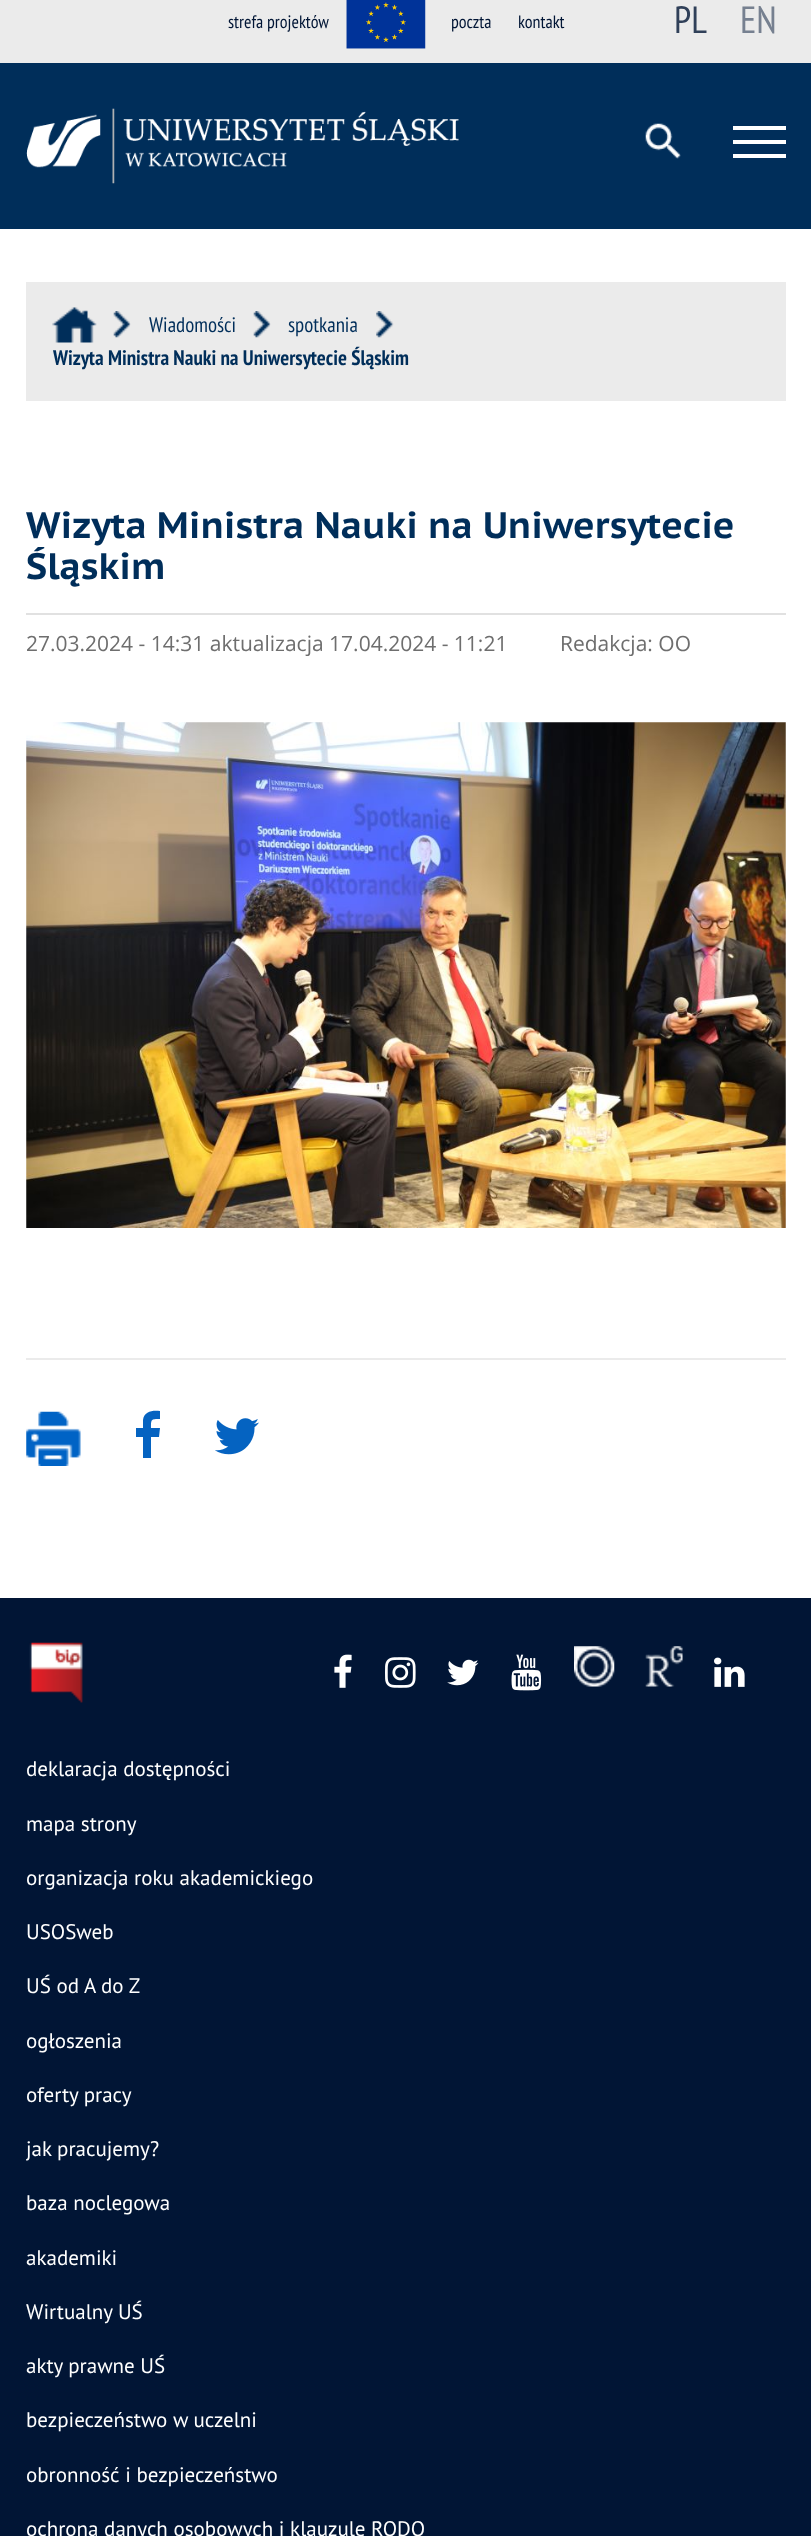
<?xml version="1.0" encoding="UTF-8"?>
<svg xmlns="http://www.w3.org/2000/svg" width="811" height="2536">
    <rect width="100%" height="100%" fill="#FFFFFF"/>
    <rect x="0" y="0" width="811" height="63" fill="#EBEBEB"/>
    <text x="228" y="28" font-family="PT Sans Narrow" font-size="18" fill="#011535">strefa projektów</text>
    <image x="346" y="0" width="80" height="49" href="img_01.png"/>
    <text x="451" y="28" font-family="PT Sans Narrow" font-size="18" fill="#011535">poczta</text>
    <text x="518" y="28" font-family="PT Sans Narrow" font-size="18" fill="#011535">kontakt</text>
    <text x="674" y="33" font-family="PT Sans Narrow" font-size="38" fill="#304059">PL</text>
    <text x="740" y="33" font-family="PT Sans Narrow" font-size="38" fill="#768090">EN</text>
    <rect x="0" y="63" width="811" height="166" fill="#002E5A"/>
    <image x="26" y="108" width="433" height="76" href="img_02.png"/>
    <image x="645" y="123" width="36" height="36" href="img_03.png"/>
    <rect x="733" y="126" width="53" height="4" fill="#FFFFFF"/>
    <rect x="733" y="140" width="53" height="4" fill="#FFFFFF"/>
    <rect x="733" y="154" width="53" height="4" fill="#FFFFFF"/>
    <rect x="26" y="282" width="760" height="119" fill="#EBEBEB"/>
    <image x="52" y="307" width="45" height="36" href="img_04.png"/>
    <image x="113" y="311" width="18" height="27" href="img_05.png"/>
    <text x="149" y="332" font-family="PT Sans Narrow" font-size="21" fill="#002E5A">Wiadomości</text>
    <image x="253" y="311" width="18" height="27" href="img_05.png"/>
    <text x="288" y="332" font-family="PT Sans Narrow" font-size="21" fill="#002E5A">spotkania</text>
    <image x="376" y="311" width="18" height="27" href="img_06.png"/>
    <text x="53" y="365" font-family="PT Sans Narrow" font-size="21" font-weight="700" fill="#002E5A">Wizyta Ministra Nauki na Uniwersytecie Śląskim</text>
    <rect x="26" y="613" width="760" height="2" fill="#E1E1E1"/>
    <text font-family="PT Sans Caption" font-size="36.75" font-weight="700" fill="#002E5A">
        <tspan x="26" y="538">Wizyta Ministra Nauki na Uniwersytecie</tspan>
        <tspan x="26" y="579">Śląskim</tspan>
    </text>
    <text x="26" y="651" font-family="Open Sans" font-size="21" fill="#6E6E6E">27.03.2024 - 14:31 aktualizacja 17.04.2024 - 11:21</text>
    <text x="560" y="651" font-family="Open Sans" font-size="21" fill="#6E6E6E">Redakcja: OO</text>
    <image x="26" y="722" width="760" height="506" href="img_07.png"/>
    <rect x="26" y="1358" width="760" height="2" fill="#EBEBEB"/>
    <image x="26" y="1411" width="55" height="55" href="img_08.png"/>
    <path d="M 160 1411 V 1419 C 151 1419 151 1419 151 1428 H 160 L 159 1437 H 151 V 1458 H 143 V 1437 H 136 V 1428 H 143 V 1420 C 144 1411 153 1410 160 1411 Z" fill="#0563C1"/>
    <image x="215" y="1418" width="44" height="37" href="img_09.png"/>
    <rect x="0" y="1598" width="811" height="938" fill="#011535"/>
    <image x="29" y="1642" width="54" height="61" href="img_10.png"/>
    <image x="334" y="1654" width="18" height="34" href="img_11.png"/>
    <image x="385" y="1657" width="31" height="31" href="img_12.png"/>
    <image x="447" y="1659" width="32" height="27" href="img_13.png"/>
    <image x="511" y="1654" width="31" height="37" href="img_14.png"/>
    <image x="574" y="1646" width="41" height="41" href="img_15.png"/>
    <image x="645" y="1646" width="38" height="41" href="img_16.png"/>
    <image x="714" y="1657" width="31" height="30" href="img_17.png"/>
    <text x="26" y="1776" font-family="PT Sans" font-size="21" fill="#FFFFFF">deklaracja dostępności</text>
    <text x="26" y="1831" font-family="PT Sans" font-size="21" fill="#FFFFFF">mapa strony</text>
    <text x="26" y="1885" font-family="PT Sans" font-size="21" fill="#FFFFFF">organizacja roku akademickiego</text>
    <text x="26" y="1939" font-family="PT Sans" font-size="21" fill="#FFFFFF">USOSweb</text>
    <text x="26" y="1993" font-family="PT Sans" font-size="21" fill="#FFFFFF">UŚ od A do Z</text>
    <text x="26" y="2048" font-family="PT Sans" font-size="21" fill="#FFFFFF">ogłoszenia</text>
    <text x="26" y="2102" font-family="PT Sans" font-size="21" fill="#FFFFFF">oferty pracy</text>
    <text x="26" y="2156" font-family="PT Sans" font-size="21" fill="#FFFFFF">jak pracujemy?</text>
    <text x="26" y="2210" font-family="PT Sans" font-size="21" fill="#FFFFFF">baza noclegowa</text>
    <text x="26" y="2265" font-family="PT Sans" font-size="21" fill="#FFFFFF">akademiki</text>
    <text x="26" y="2319" font-family="PT Sans" font-size="21" fill="#FFFFFF">Wirtualny UŚ</text>
    <text x="26" y="2373" font-family="PT Sans" font-size="21" fill="#FFFFFF">akty prawne UŚ</text>
    <text x="26" y="2427" font-family="PT Sans" font-size="21" fill="#FFFFFF">bezpieczeństwo w uczelni</text>
    <text x="26" y="2482" font-family="PT Sans" font-size="21" fill="#FFFFFF">obronność i bezpieczeństwo</text>
    <text x="26" y="2536" font-family="PT Sans" font-size="21" fill="#FFFFFF">ochrona danych osobowych i klauzule RODO</text>
</svg>
